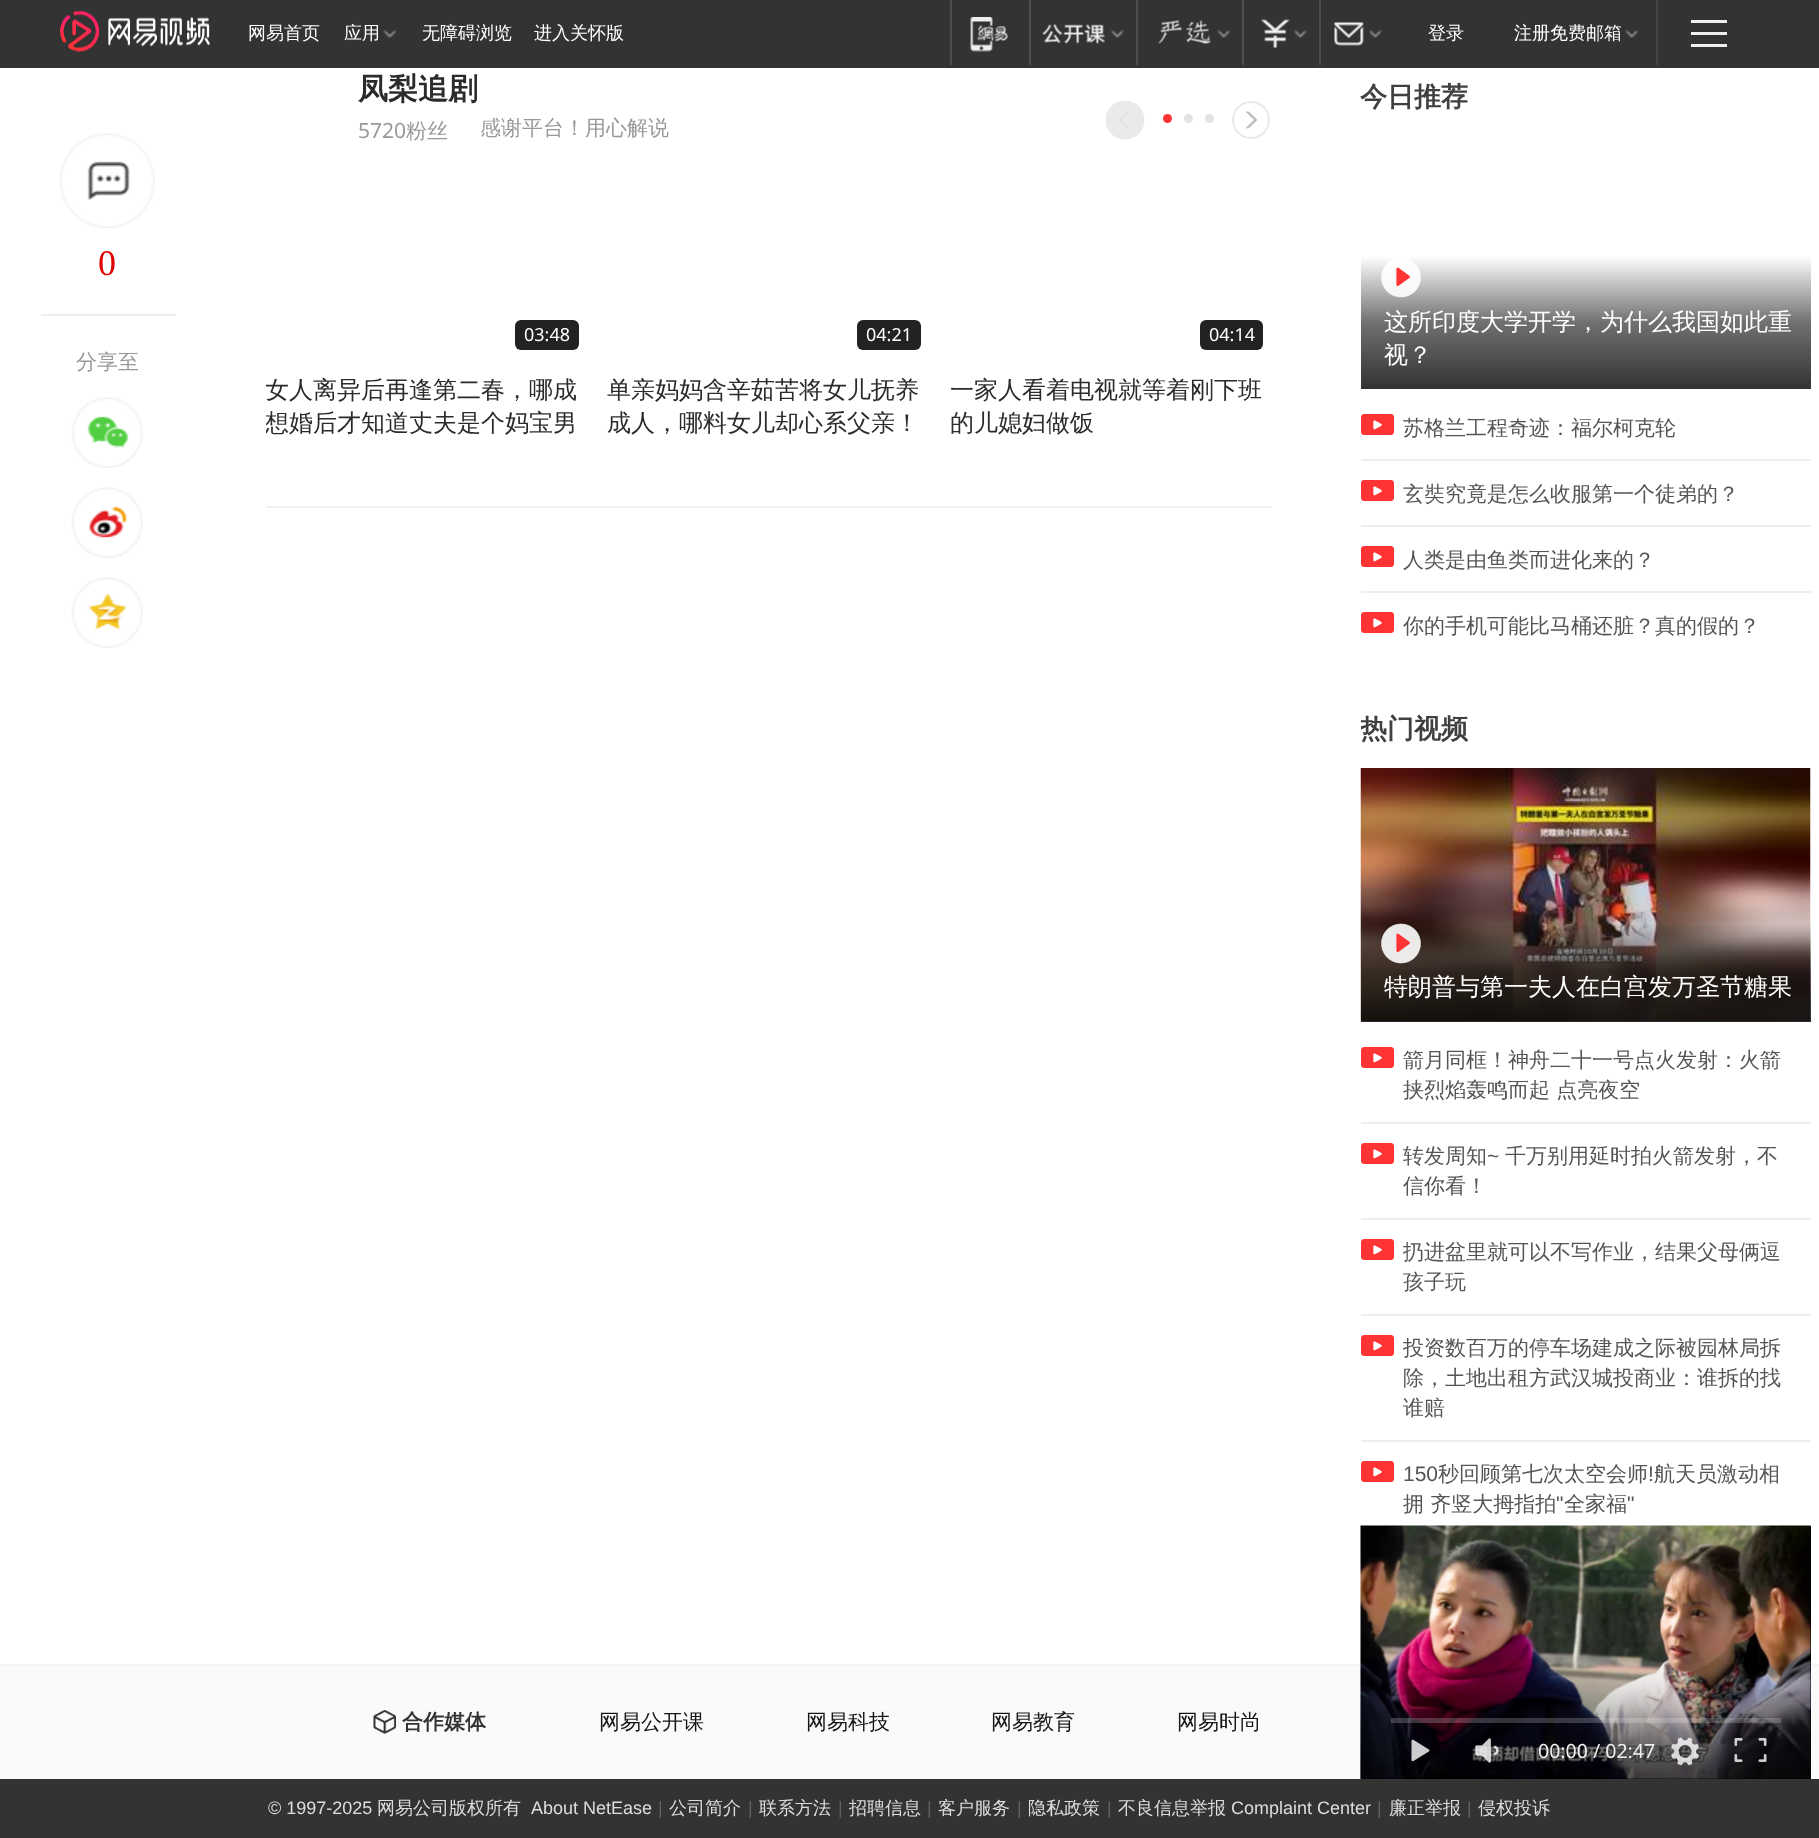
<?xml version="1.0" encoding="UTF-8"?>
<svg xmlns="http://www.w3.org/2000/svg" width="1819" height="1838">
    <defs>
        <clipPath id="clip1"><rect x="266" y="372" width="318" height="66"/></clipPath>
        <linearGradient id="g1" gradientUnits="userSpaceOnUse" x1="1586" y1="256" x2="1586" y2="389"><stop offset="0" stop-color="#FFFFFF"/><stop offset="0.5" stop-color="#707070"/><stop offset="1" stop-color="#333333"/></linearGradient>
        <clipPath id="clip2"><rect x="1361" y="0" width="450" height="1536"/></clipPath>
        <linearGradient id="g2" gradientUnits="userSpaceOnUse" x1="1586" y1="923" x2="1586" y2="1022"><stop offset="0" stop-color="#000000" stop-opacity="0"/><stop offset="0.5" stop-color="#000000" stop-opacity="0.56"/><stop offset="1" stop-color="#000000" stop-opacity="0.8"/></linearGradient>
    </defs>
    <rect width="100%" height="100%" fill="#FFFFFF"/>
    <rect x="0" y="0" width="1819" height="68" fill="#333333"/>
    <image x="60" y="10" width="150" height="42" href="img_01.png"/>
    <text x="248" y="39" font-family="WenQuanYi Zen Hei" font-size="18" font-weight="500" fill="#FFFFFF">网易首页</text>
    <text x="344" y="39" font-family="WenQuanYi Zen Hei" font-size="18" font-weight="500" fill="#FFFFFF">应用</text>
    <image x="383" y="29" width="14" height="9" href="img_02.png"/>
    <text x="422" y="39" font-family="WenQuanYi Zen Hei" font-size="18" font-weight="500" fill="#FFFFFF">无障碍浏览</text>
    <text x="534" y="39" font-family="WenQuanYi Zen Hei" font-size="18" font-weight="500" fill="#FFFFFF">进入关怀版</text>
    <rect x="950" y="0" width="2" height="65" fill="#4D4D4D"/>
    <image x="970" y="17" width="38" height="35" href="img_03.png"/>
    <rect x="1029" y="0" width="2" height="65" fill="#4D4D4D"/>
    <image x="1042" y="24" width="63" height="20" href="img_04.png"/>
    <image x="1111" y="29" width="13" height="9" href="img_05.png"/>
    <rect x="1136" y="0" width="2" height="65" fill="#4D4D4D"/>
    <image x="1158" y="20" width="53" height="24" href="img_06.png"/>
    <image x="1217" y="29" width="14" height="9" href="img_02.png"/>
    <rect x="1242" y="0" width="2" height="65" fill="#4D4D4D"/>
    <image x="1261" y="19" width="29" height="29" href="img_07.png"/>
    <image x="1294" y="29" width="13" height="9" href="img_05.png"/>
    <rect x="1319" y="0" width="2" height="65" fill="#4D4D4D"/>
    <image x="1334" y="22" width="30" height="24" href="img_08.png"/>
    <image x="1369" y="29" width="13" height="9" href="img_05.png"/>
    <text x="1428" y="39" font-family="WenQuanYi Zen Hei" font-size="18" font-weight="500" fill="#FFFFFF">登录</text>
    <text x="1514" y="39" font-family="WenQuanYi Zen Hei" font-size="18" font-weight="500" fill="#FFFFFF">注册免费邮箱</text>
    <image x="1625" y="29" width="14" height="9" href="img_02.png"/>
    <rect x="1656" y="0" width="2" height="65" fill="#444444"/>
    <rect x="1691" y="20" width="36" height="3" fill="#EFEFEF"/>
    <rect x="1691" y="32" width="36" height="3" fill="#EFEFEF"/>
    <rect x="1691" y="44" width="36" height="3" fill="#EFEFEF"/>
    <rect x="41" y="314" width="135" height="2" fill="#EEEEEE"/>
    <image x="59" y="133" width="96" height="96" href="img_09.png"/>
    <text x="98" y="275" font-family="Liberation Serif" font-size="36" fill="#E10000">0</text>
    <text x="76" y="369" font-family="WenQuanYi Zen Hei" font-size="21" font-weight="500" fill="#999999">分享至</text>
    <image x="71" y="397" width="72" height="71" href="img_10.png"/>
    <image x="71" y="487" width="72" height="71" href="img_11.png"/>
    <image x="71" y="577" width="72" height="71" href="img_12.png"/>
    <rect x="266" y="506" width="1005" height="2" fill="#F2F2F2"/>
    <text x="358" y="99" font-family="WenQuanYi Zen Hei" font-size="30" font-weight="700" fill="#2B2B2B">凤梨追剧</text>
    <text x="358" y="138" font-family="Noto Sans" font-size="21" fill="#999999">5720</text>
    <text x="406" y="138" font-family="WenQuanYi Zen Hei" font-size="21" font-weight="500" fill="#999999">粉丝</text>
    <text x="480" y="135" font-family="WenQuanYi Zen Hei" font-size="21" font-weight="500" fill="#999999">感谢平台！用心解说</text>
    <image x="1106" y="101" width="39" height="39" href="img_13.png"/>
    <circle cx="1167.5" cy="118.5" r="4.5" fill="#FF3333"/>
    <circle cx="1188.5" cy="118.5" r="4.5" fill="#E3E3E3"/>
    <circle cx="1209.5" cy="118.5" r="4.5" fill="#E3E3E3"/>
    <image x="1232" y="101" width="38" height="38" href="img_14.png"/>
    <rect x="515" y="320" width="64" height="30" rx="6" fill="#222222"/>
    <text x="524" y="341" font-family="Noto Sans" font-size="18" fill="#FFFFFF">03:48</text>
    <g clip-path="url(#clip1)">
        <text font-family="WenQuanYi Zen Hei" font-size="24" font-weight="500" fill="#2B2B2B">
            <tspan x="265" y="398">女人离异后再逢第二春，哪成</tspan>
            <tspan x="265" y="431">想婚后才知道丈夫是个妈宝男</tspan>
        </text>
    </g>
    <rect x="857" y="320" width="64" height="30" rx="6" fill="#222222"/>
    <text x="866" y="341" font-family="Noto Sans" font-size="18" fill="#FFFFFF">04:21</text>
    <text font-family="WenQuanYi Zen Hei" font-size="24" font-weight="500" fill="#2B2B2B">
        <tspan x="607" y="398">单亲妈妈含辛茹苦将女儿抚养</tspan>
        <tspan x="607" y="431">成人，哪料女儿却心系父亲！</tspan>
    </text>
    <rect x="1200" y="320" width="63" height="30" rx="6" fill="#222222"/>
    <text x="1209" y="341" font-family="Noto Sans" font-size="18" fill="#FFFFFF">04:14</text>
    <text font-family="WenQuanYi Zen Hei" font-size="24" font-weight="500" fill="#2B2B2B">
        <tspan x="950" y="398">一家人看着电视就等着刚下班</tspan>
        <tspan x="950" y="431">的儿媳妇做饭</tspan>
    </text>
    <rect x="0" y="1666" width="1819" height="113" fill="#FAFAFA"/>
    <rect x="0" y="1664" width="1819" height="2" fill="#F4F4F4"/>
    <rect x="1361" y="1526" width="450" height="253" fill="#000000"/>
    <image x="1360" y="1525" width="451" height="254" href="img_15.png"/>
    <image x="1360" y="1657" width="451" height="122" href="img_16.png"/>
    <rect x="1391" y="1718" width="390" height="5" fill="#FFFFFF" fill-opacity="0.2"/>
    <image x="1411" y="1739" width="19" height="23" href="img_17.png"/>
    <image x="1475" y="1738" width="24" height="25" href="img_18.png"/>
    <text x="1538" y="1758" font-family="Noto Sans" font-size="19.5" fill="#EEEEEE">00:00 / 02:47</text>
    <image x="1671" y="1737" width="28" height="29" href="img_19.png"/>
    <image x="1734" y="1738" width="33" height="24" href="img_20.png"/>
    <text x="1360" y="106" font-family="WenQuanYi Zen Hei" font-size="27" font-weight="700" fill="#404040">今日推荐</text>
    <rect x="1361" y="257" width="450" height="132" fill="url(#g1)"/>
    <image x="1381" y="258" width="40" height="40" href="img_21.png"/>
    <text font-family="WenQuanYi Zen Hei" font-size="24" font-weight="500" fill="#FFFFFF">
        <tspan x="1384" y="330">这所印度大学开学，为什么我国如此重</tspan>
        <tspan x="1384" y="363">视？</tspan>
    </text>
    <rect x="1361" y="459" width="450" height="2" fill="#EEEEEE"/>
    <image x="1361" y="414" width="33" height="21" href="img_22.png"/>
    <text x="1403" y="435" font-family="WenQuanYi Zen Hei" font-size="21" font-weight="500" fill="#555555">苏格兰工程奇迹：福尔柯克轮</text>
    <rect x="1361" y="525" width="450" height="2" fill="#EEEEEE"/>
    <image x="1361" y="480" width="33" height="21" href="img_22.png"/>
    <text x="1403" y="501" font-family="WenQuanYi Zen Hei" font-size="21" font-weight="500" fill="#555555">玄奘究竟是怎么收服第一个徒弟的？</text>
    <rect x="1361" y="591" width="450" height="2" fill="#EEEEEE"/>
    <image x="1361" y="546" width="33" height="21" href="img_22.png"/>
    <text x="1403" y="567" font-family="WenQuanYi Zen Hei" font-size="21" font-weight="500" fill="#555555">人类是由鱼类而进化来的？</text>
    <image x="1361" y="612" width="33" height="21" href="img_22.png"/>
    <text x="1403" y="633" font-family="WenQuanYi Zen Hei" font-size="21" font-weight="500" fill="#555555">你的手机可能比马桶还脏？真的假的？</text>
    <g clip-path="url(#clip2)">
        <text x="1360" y="738" font-family="WenQuanYi Zen Hei" font-size="27" font-weight="700" fill="#404040">热门视频</text>
    </g>
    <image x="1360" y="768" width="451" height="254" href="img_23.png"/>
    <rect x="1361" y="925" width="450" height="97" fill="url(#g2)"/>
    <image x="1381" y="923" width="40" height="41" href="img_24.png"/>
    <text x="1384" y="995" font-family="WenQuanYi Zen Hei" font-size="24" font-weight="500" fill="#FFFFFF">特朗普与第一夫人在白宫发万圣节糖果</text>
    <rect x="1361" y="1122" width="450" height="2" fill="#EEEEEE"/>
    <image x="1361" y="1047" width="33" height="21" href="img_22.png"/>
    <text font-family="WenQuanYi Zen Hei" font-size="21" font-weight="500" fill="#555555">
        <tspan x="1403" y="1067">箭月同框！神舟二十一号点火发射：火箭</tspan>
        <tspan x="1403" y="1097">挟烈焰轰鸣而起 点亮夜空</tspan>
    </text>
    <rect x="1361" y="1218" width="450" height="2" fill="#EEEEEE"/>
    <image x="1361" y="1143" width="33" height="21" href="img_22.png"/>
    <text x="1403" y="1163" font-family="WenQuanYi Zen Hei" font-size="21" font-weight="500" fill="#555555">转发周知</text>
    <text x="1487" y="1163" font-family="Liberation Sans" font-size="21" fill="#555555">~</text>
    <text x="1505" y="1163" font-family="WenQuanYi Zen Hei" font-size="21" font-weight="500" fill="#555555">千万别用延时拍火箭发射，不</text>
    <text x="1403" y="1193" font-family="WenQuanYi Zen Hei" font-size="21" font-weight="500" fill="#555555">信你看！</text>
    <rect x="1361" y="1314" width="450" height="2" fill="#EEEEEE"/>
    <image x="1361" y="1239" width="33" height="21" href="img_22.png"/>
    <text font-family="WenQuanYi Zen Hei" font-size="21" font-weight="500" fill="#555555">
        <tspan x="1403" y="1259">扔进盆里就可以不写作业，结果父母俩逗</tspan>
        <tspan x="1403" y="1289">孩子玩</tspan>
    </text>
    <rect x="1361" y="1440" width="450" height="2" fill="#EEEEEE"/>
    <image x="1361" y="1335" width="33" height="21" href="img_22.png"/>
    <text font-family="WenQuanYi Zen Hei" font-size="21" font-weight="500" fill="#555555">
        <tspan x="1403" y="1355">投资数百万的停车场建成之际被园林局拆</tspan>
        <tspan x="1403" y="1385">除，土地出租方武汉城投商业：谁拆的找</tspan>
        <tspan x="1403" y="1415">谁赔</tspan>
    </text>
    <image x="1361" y="1461" width="33" height="21" href="img_22.png"/>
    <text x="1403" y="1481" font-family="Liberation Sans" font-size="21" fill="#555555">150</text>
    <text x="1438" y="1481" font-family="WenQuanYi Zen Hei" font-size="21" font-weight="500" fill="#555555">秒回顾第七次太空会师</text>
    <text x="1648" y="1481" font-family="Liberation Sans" font-size="21" fill="#555555">!</text>
    <text x="1654" y="1481" font-family="WenQuanYi Zen Hei" font-size="21" font-weight="500" fill="#555555">航天员激动相</text>
    <text x="1403" y="1511" font-family="WenQuanYi Zen Hei" font-size="21" font-weight="500" fill="#555555">拥 齐竖大拇指拍</text>
    <text x="1556" y="1511" font-family="Liberation Sans" font-size="21" fill="#555555">"</text>
    <text x="1564" y="1511" font-family="WenQuanYi Zen Hei" font-size="21" font-weight="500" fill="#555555">全家福</text>
    <text x="1627" y="1511" font-family="Liberation Sans" font-size="21" fill="#555555">"</text>
    <image x="373" y="1710" width="23" height="24" href="img_25.png"/>
    <text x="402" y="1729" font-family="WenQuanYi Zen Hei" font-size="21" font-weight="700" fill="#333333">合作媒体</text>
    <text x="599" y="1729" font-family="WenQuanYi Zen Hei" font-size="21" font-weight="500" fill="#151515">网易公开课</text>
    <text x="806" y="1729" font-family="WenQuanYi Zen Hei" font-size="21" font-weight="500" fill="#151515">网易科技</text>
    <text x="991" y="1729" font-family="WenQuanYi Zen Hei" font-size="21" font-weight="500" fill="#151515">网易教育</text>
    <text x="1177" y="1729" font-family="WenQuanYi Zen Hei" font-size="21" font-weight="500" fill="#151515">网易时尚</text>
    <rect x="0" y="1779" width="1819" height="59" fill="#333333"/>
    <text x="268" y="1814" font-family="Liberation Sans" font-size="18" fill="#DDDDDD">© 1997-2025</text>
    <text x="377" y="1814" font-family="WenQuanYi Zen Hei" font-size="18" font-weight="500" fill="#DDDDDD">网易公司版权所有</text>
    <text x="531" y="1814" font-family="Liberation Sans" font-size="18" fill="#DDDDDD">About NetEase</text>
    <text x="658" y="1814" font-family="Liberation Sans" font-size="18" fill="#616161">|</text>
    <text x="669" y="1814" font-family="WenQuanYi Zen Hei" font-size="18" font-weight="500" fill="#DDDDDD">公司简介</text>
    <text x="748" y="1814" font-family="Liberation Sans" font-size="18" fill="#616161">|</text>
    <text x="759" y="1814" font-family="WenQuanYi Zen Hei" font-size="18" font-weight="500" fill="#DDDDDD">联系方法</text>
    <text x="838" y="1814" font-family="Liberation Sans" font-size="18" fill="#616161">|</text>
    <text x="849" y="1814" font-family="WenQuanYi Zen Hei" font-size="18" font-weight="500" fill="#DDDDDD">招聘信息</text>
    <text x="927" y="1814" font-family="Liberation Sans" font-size="18" fill="#616161">|</text>
    <text x="938" y="1814" font-family="WenQuanYi Zen Hei" font-size="18" font-weight="500" fill="#DDDDDD">客户服务</text>
    <text x="1017" y="1814" font-family="Liberation Sans" font-size="18" fill="#616161">|</text>
    <text x="1028" y="1814" font-family="WenQuanYi Zen Hei" font-size="18" font-weight="500" fill="#DDDDDD">隐私政策</text>
    <text x="1107" y="1814" font-family="Liberation Sans" font-size="18" fill="#616161">|</text>
    <text x="1118" y="1814" font-family="WenQuanYi Zen Hei" font-size="18" font-weight="500" fill="#DDDDDD">不良信息举报</text>
    <text x="1231" y="1814" font-family="Liberation Sans" font-size="18" fill="#DDDDDD">Complaint Center</text>
    <text x="1377" y="1814" font-family="Liberation Sans" font-size="18" fill="#616161">|</text>
    <text x="1389" y="1814" font-family="WenQuanYi Zen Hei" font-size="18" font-weight="500" fill="#DDDDDD">廉正举报</text>
    <text x="1467" y="1814" font-family="Liberation Sans" font-size="18" fill="#616161">|</text>
    <text x="1478" y="1814" font-family="WenQuanYi Zen Hei" font-size="18" font-weight="500" fill="#DDDDDD">侵权投诉</text>
</svg>
